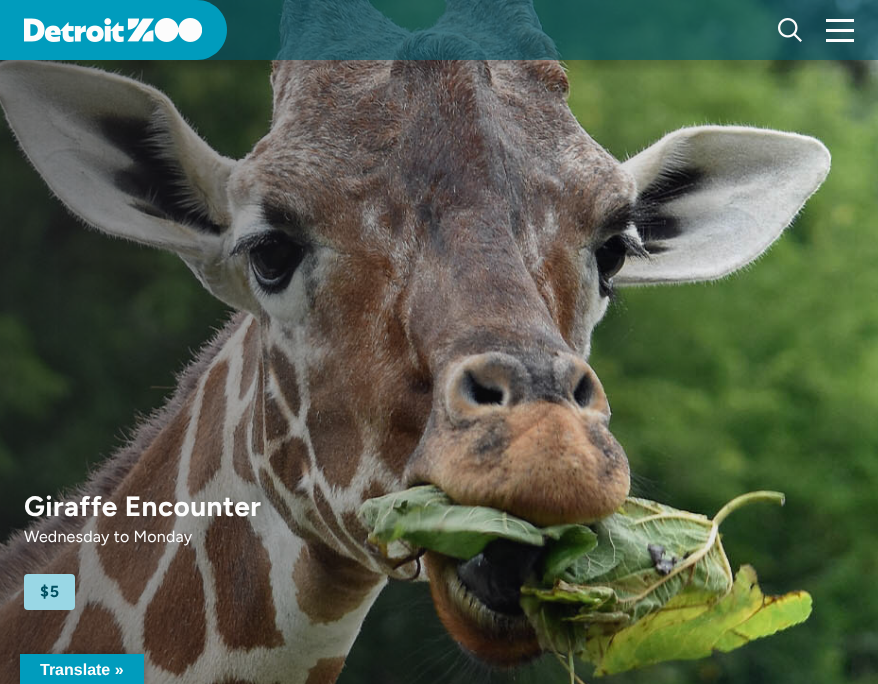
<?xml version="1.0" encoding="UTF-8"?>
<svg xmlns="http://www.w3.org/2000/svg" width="878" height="684">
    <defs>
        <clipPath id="clip1"><rect x="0" y="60" width="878" height="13"/></clipPath>
        <filter id="blur1" x="-50%" y="-200%" width="200%" height="500%"><feGaussianBlur stdDeviation="4"/></filter>
        <filter id="blur2" x="-50%" y="-200%" width="200%" height="500%"><feGaussianBlur stdDeviation="4.5"/></filter>
    </defs>
    <rect width="100%" height="100%" fill="#FFFFFF"/>
    <image x="0" y="0" width="878" height="684" href="img_03.png"/>
    <g clip-path="url(#clip1)">
        <rect x="-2" y="0" width="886" height="68" fill="#000000" fill-opacity="0.16" filter="url(#blur1)"/>
    </g>
    <rect x="197" y="0" width="681" height="60" fill="#004E5F" fill-opacity="0.65"/>
    <path d="M 0 0 H 197 C 213.5 0 227 13.5 227 30 C 227 46.5 213.5 60 197 60 H 0 Z" fill="#009CBD"/>
    <image x="24" y="18" width="178" height="24" href="img_01.png"/>
    <image x="778" y="18" width="24" height="24" href="img_02.png"/>
    <rect x="826" y="19" width="28" height="3" fill="#FCFCFC"/>
    <rect x="826" y="29" width="28" height="3" fill="#FCFCFC"/>
    <rect x="826" y="39" width="28" height="3" fill="#FCFCFC"/>
    <text x="24" y="516" font-family="Figtree" font-size="28" font-weight="700" letter-spacing="0.4" fill="#FCFCFC">Giraffe Encounter</text>
    <text x="24" y="542" font-family="Figtree" font-size="16" letter-spacing="0.2" fill="#FCFCFC">Wednesday to Monday</text>
    <rect x="24" y="574" width="51" height="36" rx="4" fill="#99D7E5"/>
    <text x="40" y="597" font-family="Figtree" font-size="16" font-weight="700" letter-spacing="1" fill="#004E5F">$5</text>
    <rect x="20" y="654" width="124" height="30" fill="#000000" fill-opacity="0.3" filter="url(#blur2)"/>
    <rect x="20" y="654" width="124" height="30" fill="#009CBD"/>
    <text x="40" y="675" font-family="Liberation Sans" font-size="16" font-weight="700" fill="#FCFCFC">Translate »</text>
</svg>
